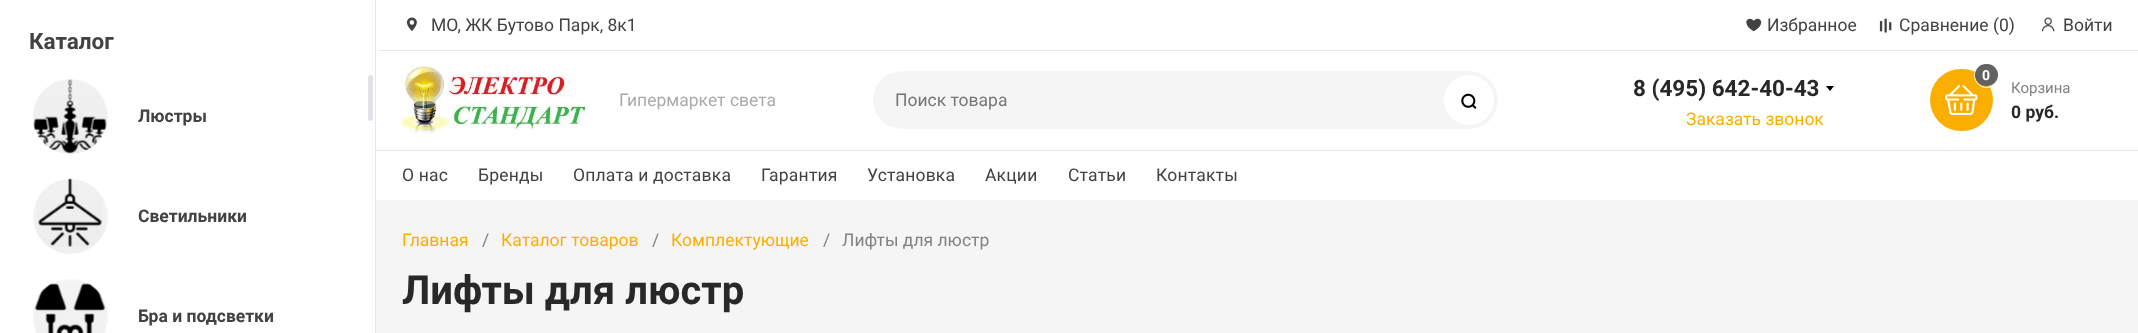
<?xml version="1.0" encoding="UTF-8"?>
<svg xmlns="http://www.w3.org/2000/svg" width="2138" height="333">
    <defs>
        <linearGradient id="g1" gradientUnits="userSpaceOnUse" x1="70" y1="79" x2="70" y2="154"><stop offset="0" stop-color="#F5F5F5"/><stop offset="1" stop-color="#F0F0F0"/></linearGradient>
        <linearGradient id="g2" gradientUnits="userSpaceOnUse" x1="70" y1="179" x2="70" y2="254"><stop offset="0" stop-color="#F5F5F5"/><stop offset="1" stop-color="#F0F0F0"/></linearGradient>
        <linearGradient id="g3" gradientUnits="userSpaceOnUse" x1="70" y1="279" x2="70" y2="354"><stop offset="0" stop-color="#F5F5F5"/><stop offset="1" stop-color="#F0F0F0"/></linearGradient>
    </defs>
    <rect width="100%" height="100%" fill="#F5F5F5"/>
    <rect x="0" y="0" width="375" height="333" fill="#FFFFFF"/>
    <text x="29" y="49" font-family="Roboto" font-size="22.5" font-weight="700" fill="#424242">Каталог</text>
    <rect x="368" y="75" width="5" height="46" rx="2.5" fill="#E1E1E6"/>
    <circle cx="70.5" cy="116.5" r="37.5" fill="url(#g1)"/>
    <image x="33" y="79" width="74" height="75" href="img_01.png"/>
    <text x="138" y="122" font-family="Roboto" font-size="17.5" font-weight="700" fill="#424242">Люстры</text>
    <circle cx="70.5" cy="216.5" r="37.5" fill="url(#g2)"/>
    <image x="37" y="178" width="66" height="69" href="img_02.png"/>
    <text x="138" y="222" font-family="Roboto" font-size="17.5" font-weight="700" fill="#424242">Светильники</text>
    <circle cx="70.5" cy="316.5" r="37.5" fill="url(#g3)"/>
    <image x="34" y="283" width="72" height="50" href="img_03.png"/>
    <text x="138" y="322" font-family="Roboto" font-size="17.5" font-weight="700" fill="#424242">Бра и подсветки</text>
    <rect x="376" y="0" width="1762" height="200" fill="#FFFFFF"/>
    <rect x="375" y="150" width="1763" height="1" fill="#E7E7E7"/>
    <rect x="375" y="0" width="1" height="333" fill="#E7E7E7"/>
    <rect x="379" y="50" width="1759" height="1" fill="#E7E7E7"/>
    <image x="406" y="17" width="11" height="15" href="img_04.png"/>
    <text x="431" y="31" font-family="Roboto" font-size="17.5" fill="#424242">МО, ЖК Бутово Парк, 8к1</text>
    <image x="1746" y="18" width="16" height="14" href="img_05.png"/>
    <text x="1767" y="31" font-family="Roboto" font-size="17.5" fill="#424242">Избранное</text>
    <image x="1879" y="18" width="13" height="15" href="img_06.png"/>
    <text x="1899" y="31" font-family="Roboto" font-size="17.5" fill="#424242">Сравнение (0)</text>
    <image x="2041" y="17" width="14" height="15" href="img_07.png"/>
    <text x="2063" y="31" font-family="Roboto" font-size="17.5" fill="#424242">Войти</text>
    <image x="401" y="65" width="188" height="70" href="img_08.png"/>
    <text x="619" y="106" font-family="Roboto" font-size="17.5" fill="#AAAAAA">Гипермаркет света</text>
    <rect x="873" y="71" width="625" height="58" rx="29" fill="#F5F5F5"/>
    <text x="895" y="106" font-family="Roboto" font-size="17.5" fill="#757575">Поиск товара</text>
    <circle cx="1469" cy="100" r="25" fill="#FFFFFF"/>
    <image x="1461" y="93" width="16" height="16" href="img_09.png"/>
    <text x="1633" y="96" font-family="Roboto" font-size="22.5" font-weight="700" fill="#282828">8 (495) 642-40-43</text>
    <path d="M 1826 86 H 1834 L 1830 91 Z" fill="#000000"/>
    <text x="1686" y="125" font-family="Roboto" font-size="17.5" fill="#FAAF00">Заказать звонок</text>
    <rect x="1930" y="69" width="63" height="62" rx="31" fill="#FAAF00"/>
    <image x="1945" y="85" width="33" height="30" href="img_10.png"/>
    <circle cx="1986.5" cy="75.5" r="12" fill="none" stroke="#FFFFFF"/>
    <rect x="1975" y="64" width="23" height="22" rx="11" fill="#626262"/>
    <text x="1982" y="80" font-family="Roboto" font-size="14" font-weight="700" fill="#FFFFFF">0</text>
    <text x="2011" y="93" font-family="Roboto" font-size="15" fill="#828282">Корзина</text>
    <text x="2011" y="118" font-family="Roboto" font-size="17.5" font-weight="700" fill="#282828">0 руб.</text>
    <text x="402" y="181" font-family="Roboto" font-size="17.5" letter-spacing="0.2" fill="#424242">О нас</text>
    <text x="478" y="181" font-family="Roboto" font-size="17.5" letter-spacing="0.2" fill="#424242">Бренды</text>
    <text x="573" y="181" font-family="Roboto" font-size="17.5" letter-spacing="0.2" fill="#424242">Оплата и доставка</text>
    <text x="761" y="181" font-family="Roboto" font-size="17.5" letter-spacing="0.2" fill="#424242">Гарантия</text>
    <text x="867" y="181" font-family="Roboto" font-size="17.5" letter-spacing="0.2" fill="#424242">Установка</text>
    <text x="985" y="181" font-family="Roboto" font-size="17.5" letter-spacing="0.2" fill="#424242">Акции</text>
    <text x="1068" y="181" font-family="Roboto" font-size="17.5" letter-spacing="0.2" fill="#424242">Статьи</text>
    <text x="1156" y="181" font-family="Roboto" font-size="17.5" letter-spacing="0.2" fill="#424242">Контакты</text>
    <text x="402" y="246" font-family="Roboto" font-size="17.5" fill="#FAAF00">Главная</text>
    <text x="482" y="246" font-family="Roboto" font-size="17.5" fill="#828282">/</text>
    <text x="501" y="246" font-family="Roboto" font-size="17.5" fill="#FAAF00">Каталог товаров</text>
    <text x="652" y="246" font-family="Roboto" font-size="17.5" fill="#828282">/</text>
    <text x="671" y="246" font-family="Roboto" font-size="17.5" fill="#FAAF00">Комплектующие</text>
    <text x="823" y="246" font-family="Roboto" font-size="17.5" fill="#828282">/</text>
    <text x="842" y="246" font-family="Roboto" font-size="17.5" fill="#828282">Лифты для люстр</text>
    <text x="402" y="304" font-family="Roboto" font-size="40" font-weight="700" fill="#282828">Лифты для люстр</text>
</svg>
